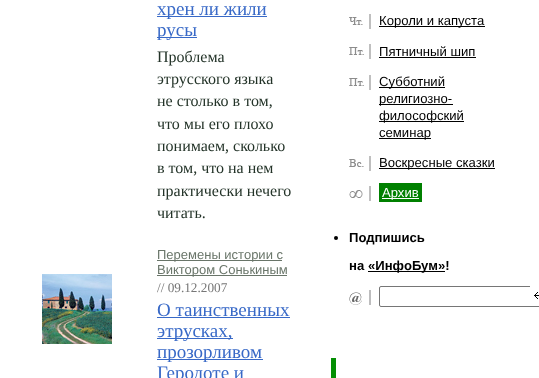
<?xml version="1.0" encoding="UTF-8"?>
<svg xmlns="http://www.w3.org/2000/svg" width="539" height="378">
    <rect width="100%" height="100%" fill="#FFFFFF"/>
    <rect x="157" y="16" width="110" height="1" fill="#3869C7"/>
    <text x="157" y="15" font-family="Liberation Serif" font-size="19" fill="#3869C7">хрен ли жили</text>
    <rect x="157" y="37" width="40" height="1" fill="#3869C7"/>
    <text x="157" y="36" font-family="Liberation Serif" font-size="19" fill="#3869C7">русы</text>
    <text font-family="Liberation Serif" font-size="16" fill="#233328">
        <tspan x="157" y="62">Проблема</tspan>
        <tspan x="157" y="84">этрусского языка</tspan>
        <tspan x="157" y="106">не столько в том,</tspan>
        <tspan x="157" y="129">что мы его плохо</tspan>
        <tspan x="157" y="151">понимаем, сколько</tspan>
        <tspan x="157" y="173">в том, что на нем</tspan>
        <tspan x="157" y="196">практически нечего</tspan>
        <tspan x="157" y="218">читать.</tspan>
    </text>
    <image x="42" y="274" width="70" height="70" href="img_01.png"/>
    <rect x="157" y="260" width="125" height="1" fill="#697569"/>
    <text x="157" y="259" font-family="Liberation Sans" font-size="13" fill="#697569">Перемены истории с</text>
    <rect x="157" y="275" width="130" height="1" fill="#697569"/>
    <text x="157" y="274" font-family="Liberation Sans" font-size="13" fill="#697569">Виктором Сонькиным</text>
    <text x="157" y="292" font-family="Liberation Serif" font-size="13.25" fill="#777777">// 09.12.2007</text>
    <text x="157" y="316" font-family="Liberation Serif" font-size="19" fill="#3869C7">О таинственных</text>
    <rect x="157" y="317" width="133" height="1" fill="#3869C7"/>
    <rect x="157" y="338" width="76" height="1" fill="#3869C7"/>
    <text x="157" y="337" font-family="Liberation Serif" font-size="19" fill="#3869C7">этрусках,</text>
    <rect x="157" y="359" width="106" height="1" fill="#3869C7"/>
    <text font-family="Liberation Serif" font-size="19" fill="#3869C7">
        <tspan x="157" y="358">прозорливом</tspan>
        <tspan x="157" y="379">Геродоте и</tspan>
    </text>
    <image x="349" y="14" width="22" height="15" href="img_02.png"/>
    <rect x="379" y="26" width="106" height="1" fill="#000000"/>
    <text x="379" y="25" font-family="Liberation Sans" font-size="13.1" fill="#000000">Короли и капуста</text>
    <image x="349" y="44" width="22" height="15" href="img_03.png"/>
    <text x="379" y="56" font-family="Liberation Sans" font-size="13.1" fill="#000000">Пятничный шип</text>
    <rect x="379" y="57" width="97" height="1" fill="#000000"/>
    <image x="349" y="75" width="22" height="15" href="img_03.png"/>
    <rect x="379" y="87" width="66" height="1" fill="#000000"/>
    <text x="379" y="86" font-family="Liberation Sans" font-size="13.1" fill="#000000">Субботний</text>
    <rect x="379" y="104" width="74" height="1" fill="#000000"/>
    <text x="379" y="103" font-family="Liberation Sans" font-size="13.1" fill="#000000">религиозно-</text>
    <rect x="379" y="121" width="85" height="1" fill="#000000"/>
    <text x="379" y="120" font-family="Liberation Sans" font-size="13.1" fill="#000000">философский</text>
    <rect x="379" y="138" width="52" height="1" fill="#000000"/>
    <text x="379" y="137" font-family="Liberation Sans" font-size="13.1" fill="#000000">семинар</text>
    <image x="349" y="156" width="22" height="15" href="img_04.png"/>
    <rect x="379" y="168" width="116" height="1" fill="#000000"/>
    <text x="379" y="167" font-family="Liberation Sans" font-size="13.1" fill="#000000">Воскресные сказки</text>
    <image x="349" y="186" width="22" height="15" href="img_05.png"/>
    <rect x="379" y="183" width="43" height="19" fill="#008000"/>
    <rect x="382" y="198" width="37" height="1" fill="#FFFFFF"/>
    <text x="382" y="197" font-family="Liberation Sans" font-size="13.1" fill="#FFFFFF">Архив</text>
    <circle cx="336" cy="238" r="2" fill="#000000"/>
    <text x="349" y="242" font-family="Liberation Sans" font-size="13.1" font-weight="700" fill="#000000">Подпишись</text>
    <text x="349" y="270" font-family="Liberation Sans" font-size="13.1" font-weight="700" fill="#000000">на</text>
    <rect x="368" y="271" width="77" height="1" fill="#000000"/>
    <text x="368" y="270" font-family="Liberation Sans" font-size="13.1" font-weight="700" fill="#000000">«ИнфоБум»!</text>
    <image x="349" y="290" width="22" height="15" href="img_06.png"/>
    <rect x="379.5" y="286.5" width="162" height="20" rx="1.5" fill="none" stroke="#767676"/>
    <image x="530" y="286" width="9" height="13" href="img_07.png"/>
    <rect x="331" y="358" width="5" height="20" fill="#048F04"/>
</svg>
